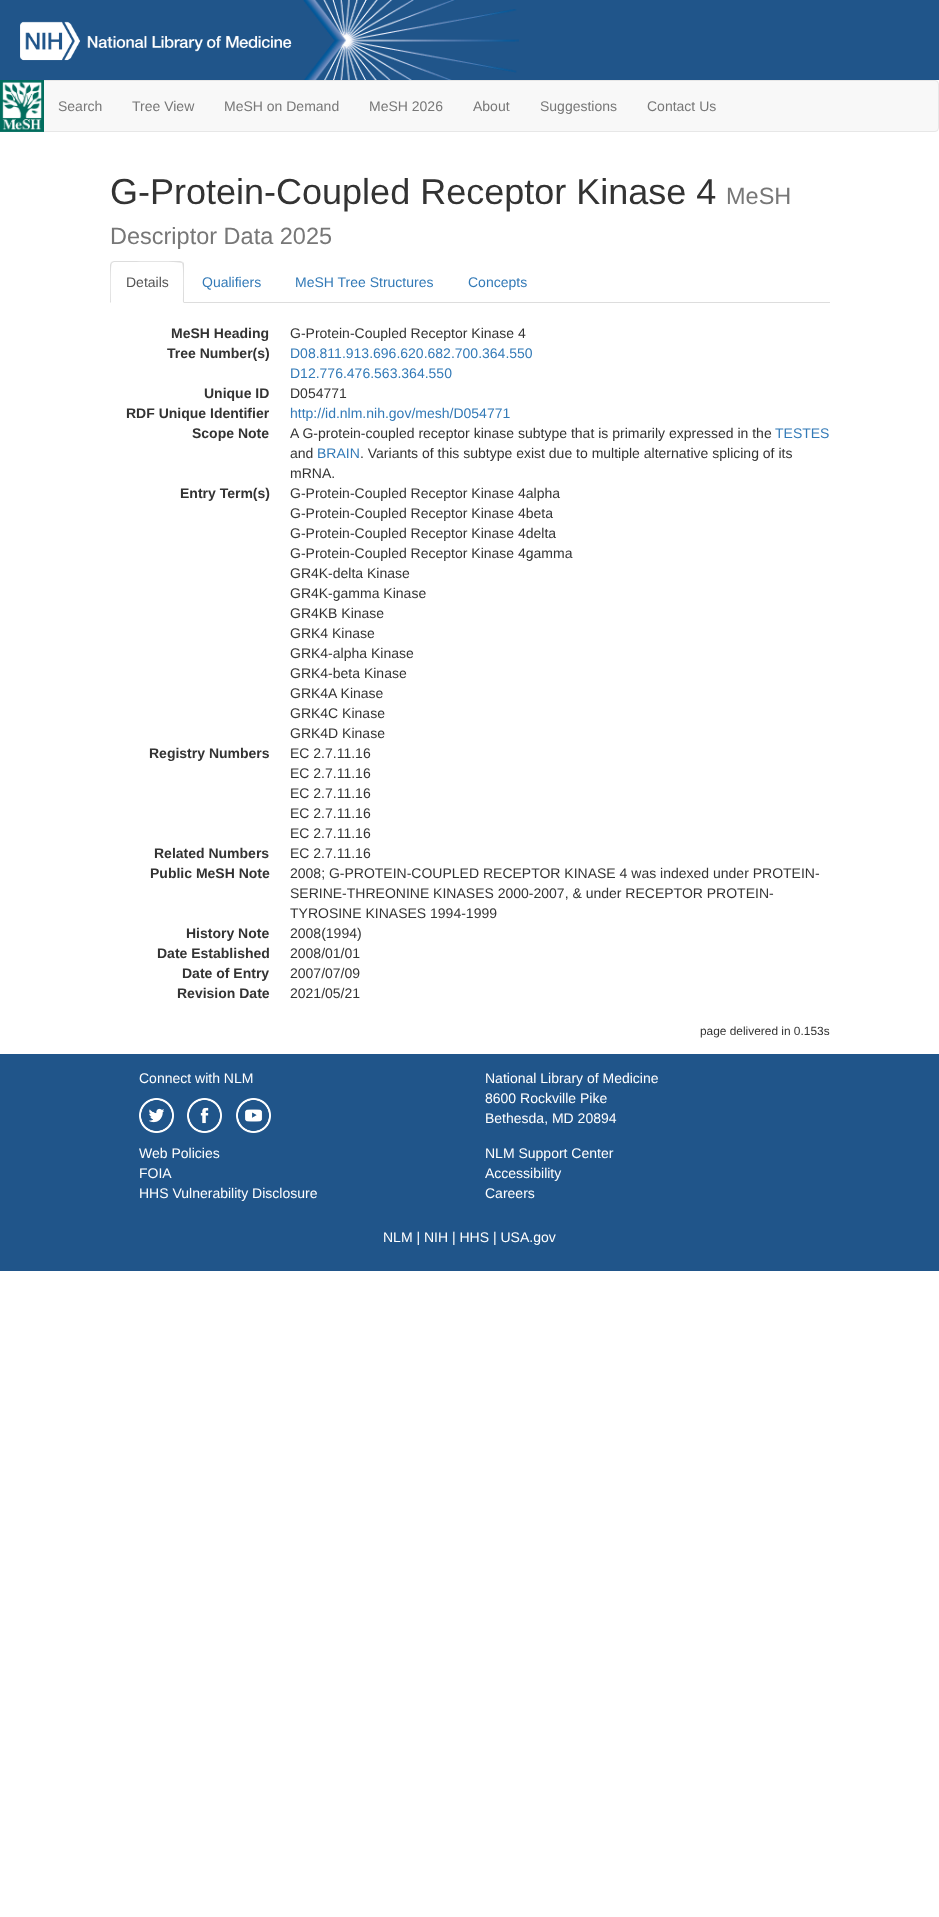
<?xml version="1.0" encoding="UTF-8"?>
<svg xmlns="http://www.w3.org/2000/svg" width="939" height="1917">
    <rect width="100%" height="100%" fill="#FFFFFF"/>
    <rect x="0" y="0" width="939" height="80" fill="#20558A"/>
    <image x="303" y="0" width="216" height="80" href="img_01.png"/>
    <image x="20" y="21" width="272" height="40" href="img_02.png"/>
    <rect x="0.5" y="80.5" width="938" height="51" rx="3.5" fill="#F8F8F8" stroke="#E7E7E7"/>
    <image x="0" y="80" width="44" height="52" href="img_03.png"/>
    <text x="58" y="111" font-family="Liberation Sans" font-size="14" fill="#777777">Search</text>
    <text x="132" y="111" font-family="Liberation Sans" font-size="14" fill="#777777">Tree View</text>
    <text x="224" y="111" font-family="Liberation Sans" font-size="14" fill="#777777">MeSH on Demand</text>
    <text x="369" y="111" font-family="Liberation Sans" font-size="14" fill="#777777">MeSH 2026</text>
    <text x="473" y="111" font-family="Liberation Sans" font-size="14" fill="#777777">About</text>
    <text x="540" y="111" font-family="Liberation Sans" font-size="14" fill="#777777">Suggestions</text>
    <text x="647" y="111" font-family="Liberation Sans" font-size="14" fill="#777777">Contact Us</text>
    <text x="110" y="204" font-family="Liberation Sans" font-size="36" fill="#333333">G-Protein-Coupled Receptor Kinase 4</text>
    <text x="726" y="204" font-family="Liberation Sans" font-size="23.5" fill="#777777">MeSH</text>
    <text x="110" y="244" font-family="Liberation Sans" font-size="23.5" fill="#777777">Descriptor Data 2025</text>
    <rect x="184" y="302" width="646" height="1" fill="#DDDDDD"/>
    <path d="M 114 261 L 111 262 L 112 263 L 114 262 H 125 C 131 262 180 261 182 263 L 183 262 L 180 261 Z" fill="#DDDDDD"/>
    <path d="M 184 303 V 265 C 184 264 184 263 183 262 L 182 263 C 184 265 183 297 183 302 Z" fill="#DDDDDD"/>
    <path d="M 110 303 L 111 302 C 111 297 110 265 112 263 L 111 262 L 110 265 Z" fill="#DDDDDD"/>
    <text x="126" y="287" font-family="Liberation Sans" font-size="14" fill="#555555">Details</text>
    <text x="202" y="287" font-family="Liberation Sans" font-size="14" fill="#337AB7">Qualifiers</text>
    <text x="295" y="287" font-family="Liberation Sans" font-size="14" fill="#337AB7">MeSH Tree Structures</text>
    <text x="468" y="287" font-family="Liberation Sans" font-size="14" fill="#337AB7">Concepts</text>
    <text x="171" y="338" font-family="Liberation Sans" font-size="14" font-weight="700" fill="#333333">MeSH Heading</text>
    <text x="290" y="338" font-family="Liberation Sans" font-size="14" fill="#333333">G-Protein-Coupled Receptor Kinase 4</text>
    <text x="167" y="358" font-family="Liberation Sans" font-size="14" font-weight="700" fill="#333333">Tree Number(s)</text>
    <text font-family="Liberation Sans" font-size="14" fill="#337AB7">
        <tspan x="290" y="358">D08.811.913.696.620.682.700.364.550</tspan>
        <tspan x="290" y="378">D12.776.476.563.364.550</tspan>
    </text>
    <text x="204" y="398" font-family="Liberation Sans" font-size="14" font-weight="700" fill="#333333">Unique ID</text>
    <text x="290" y="398" font-family="Liberation Sans" font-size="14" fill="#333333">D054771</text>
    <text x="126" y="418" font-family="Liberation Sans" font-size="14" font-weight="700" fill="#333333">RDF Unique Identifier</text>
    <text x="290" y="418" font-family="Liberation Sans" font-size="14" fill="#337AB7">http://id.nlm.nih.gov/mesh/D054771</text>
    <text x="192" y="438" font-family="Liberation Sans" font-size="14" font-weight="700" fill="#333333">Scope Note</text>
    <text x="290" y="438" font-family="Liberation Sans" font-size="14" fill="#333333">A G-protein-coupled receptor kinase subtype that is primarily expressed in the</text>
    <text x="775" y="438" font-family="Liberation Sans" font-size="14" fill="#337AB7">TESTES</text>
    <text x="290" y="458" font-family="Liberation Sans" font-size="14" fill="#333333">and</text>
    <text x="317" y="458" font-family="Liberation Sans" font-size="14" fill="#337AB7">BRAIN</text>
    <text x="360" y="458" font-family="Liberation Sans" font-size="14" fill="#333333">. Variants of this subtype exist due to multiple alternative splicing of its</text>
    <text x="290" y="478" font-family="Liberation Sans" font-size="14" fill="#333333">mRNA.</text>
    <text x="180" y="498" font-family="Liberation Sans" font-size="14" font-weight="700" fill="#333333">Entry Term(s)</text>
    <text font-family="Liberation Sans" font-size="14" fill="#333333">
        <tspan x="290" y="498">G-Protein-Coupled Receptor Kinase 4alpha</tspan>
        <tspan x="290" y="518">G-Protein-Coupled Receptor Kinase 4beta</tspan>
        <tspan x="290" y="538">G-Protein-Coupled Receptor Kinase 4delta</tspan>
        <tspan x="290" y="558">G-Protein-Coupled Receptor Kinase 4gamma</tspan>
        <tspan x="290" y="578">GR4K-delta Kinase</tspan>
        <tspan x="290" y="598">GR4K-gamma Kinase</tspan>
        <tspan x="290" y="618">GR4KB Kinase</tspan>
        <tspan x="290" y="638">GRK4 Kinase</tspan>
        <tspan x="290" y="658">GRK4-alpha Kinase</tspan>
        <tspan x="290" y="678">GRK4-beta Kinase</tspan>
        <tspan x="290" y="698">GRK4A Kinase</tspan>
        <tspan x="290" y="718">GRK4C Kinase</tspan>
        <tspan x="290" y="738">GRK4D Kinase</tspan>
    </text>
    <text x="149" y="758" font-family="Liberation Sans" font-size="14" font-weight="700" fill="#333333">Registry Numbers</text>
    <text font-family="Liberation Sans" font-size="14" fill="#333333">
        <tspan x="290" y="758">EC 2.7.11.16</tspan>
        <tspan x="290" y="778">EC 2.7.11.16</tspan>
        <tspan x="290" y="798">EC 2.7.11.16</tspan>
        <tspan x="290" y="818">EC 2.7.11.16</tspan>
        <tspan x="290" y="838">EC 2.7.11.16</tspan>
    </text>
    <text x="154" y="858" font-family="Liberation Sans" font-size="14" font-weight="700" fill="#333333">Related Numbers</text>
    <text x="290" y="858" font-family="Liberation Sans" font-size="14" fill="#333333">EC 2.7.11.16</text>
    <text x="150" y="878" font-family="Liberation Sans" font-size="14" font-weight="700" fill="#333333">Public MeSH Note</text>
    <text font-family="Liberation Sans" font-size="14" fill="#333333">
        <tspan x="290" y="878">2008; G-PROTEIN-COUPLED RECEPTOR KINASE 4 was indexed under PROTEIN-</tspan>
        <tspan x="290" y="898">SERINE-THREONINE KINASES 2000-2007, &amp; under RECEPTOR PROTEIN-</tspan>
        <tspan x="290" y="918">TYROSINE KINASES 1994-1999</tspan>
    </text>
    <text x="186" y="938" font-family="Liberation Sans" font-size="14" font-weight="700" fill="#333333">History Note</text>
    <text x="290" y="938" font-family="Liberation Sans" font-size="14" fill="#333333">2008(1994)</text>
    <text x="157" y="958" font-family="Liberation Sans" font-size="14" font-weight="700" fill="#333333">Date Established</text>
    <text x="290" y="958" font-family="Liberation Sans" font-size="14" fill="#333333">2008/01/01</text>
    <text x="182" y="978" font-family="Liberation Sans" font-size="14" font-weight="700" fill="#333333">Date of Entry</text>
    <text x="290" y="978" font-family="Liberation Sans" font-size="14" fill="#333333">2007/07/09</text>
    <text x="177" y="998" font-family="Liberation Sans" font-size="14" font-weight="700" fill="#333333">Revision Date</text>
    <text x="290" y="998" font-family="Liberation Sans" font-size="14" fill="#333333">2021/05/21</text>
    <text x="700" y="1035" font-family="Liberation Sans" font-size="11.9" fill="#333333">page delivered in 0.153s</text>
    <rect x="0" y="1054" width="939" height="217" fill="#20558A"/>
    <text x="139" y="1083" font-family="Liberation Sans" font-size="14" fill="#FFFFFF">Connect with NLM</text>
    <image x="139" y="1098" width="35" height="35" href="img_04.png"/>
    <image x="187" y="1098" width="35" height="35" href="img_05.png"/>
    <image x="236" y="1098" width="35" height="35" href="img_06.png"/>
    <text font-family="Liberation Sans" font-size="14" fill="#FFFFFF">
        <tspan x="485" y="1083">National Library of Medicine</tspan>
        <tspan x="485" y="1103">8600 Rockville Pike</tspan>
        <tspan x="485" y="1123">Bethesda, MD 20894</tspan>
    </text>
    <text font-family="Liberation Sans" font-size="14" fill="#FFFFFF">
        <tspan x="139" y="1158">Web Policies</tspan>
        <tspan x="139" y="1178">FOIA</tspan>
        <tspan x="139" y="1198">HHS Vulnerability Disclosure</tspan>
    </text>
    <text font-family="Liberation Sans" font-size="14" fill="#FFFFFF">
        <tspan x="485" y="1158">NLM Support Center</tspan>
        <tspan x="485" y="1178">Accessibility</tspan>
        <tspan x="485" y="1198">Careers</tspan>
    </text>
    <text x="383" y="1242" font-family="Liberation Sans" font-size="14" fill="#FFFFFF">NLM | NIH | HHS | USA.gov</text>
</svg>
